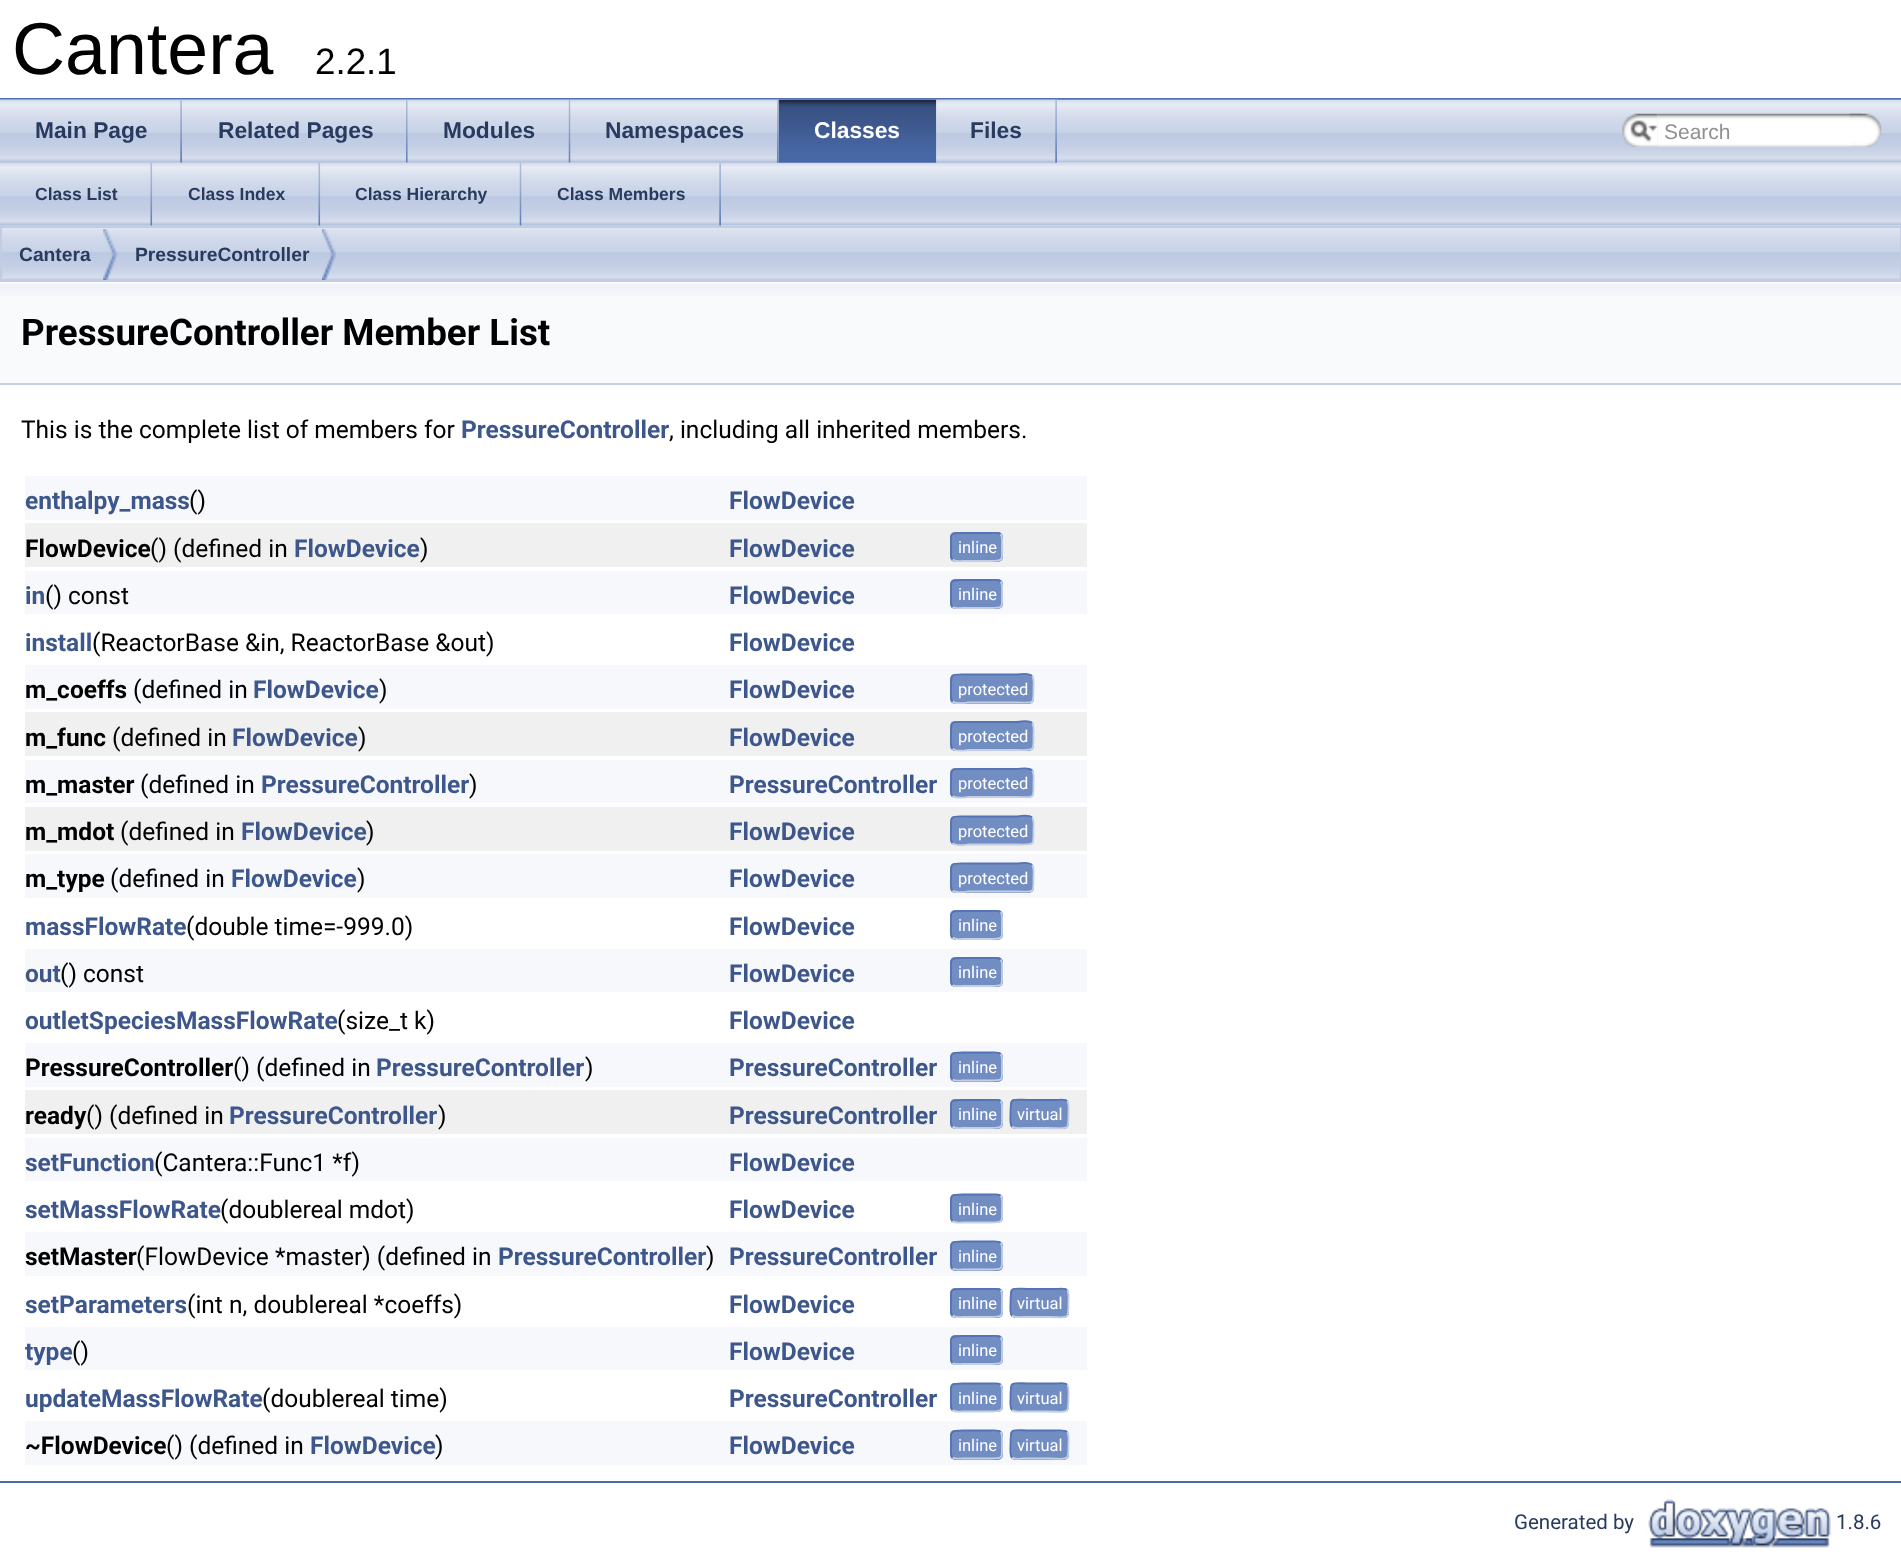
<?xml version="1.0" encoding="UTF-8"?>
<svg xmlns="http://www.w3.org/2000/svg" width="1901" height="1560">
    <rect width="100%" height="100%" fill="#FFFFFF"/>
    <rect x="0" y="98" width="1901" height="2" fill="#5373B4"/>
    <text x="12" y="74" font-family="Liberation Sans" font-size="73.5" fill="#000000">Cantera</text>
    <text x="315" y="74" font-family="Liberation Sans" font-size="36.75" fill="#000000">2.2.1</text>
    <image x="0" y="99" width="1901" height="64" href="img_01.png"/>
    <image x="0" y="162" width="1901" height="64" href="img_16.png"/>
    <image x="0" y="99" width="182" height="64" href="img_02.png"/>
    <image x="180" y="99" width="2" height="64" href="img_03.png"/>
    <text x="35" y="138" font-family="Liberation Sans" font-size="22.75" font-weight="700" fill="#283A5D">Main Page</text>
    <image x="182" y="99" width="226" height="64" href="img_04.png"/>
    <image x="406" y="99" width="2" height="64" href="img_05.png"/>
    <text x="218" y="138" font-family="Liberation Sans" font-size="22.75" font-weight="700" fill="#283A5D">Related Pages</text>
    <image x="407" y="99" width="164" height="64" href="img_06.png"/>
    <image x="568" y="99" width="3" height="64" href="img_07.png"/>
    <text x="443" y="138" font-family="Liberation Sans" font-size="22.75" font-weight="700" fill="#283A5D">Modules</text>
    <image x="570" y="99" width="209" height="64" href="img_08.png"/>
    <image x="777" y="99" width="2" height="64" href="img_05.png"/>
    <text x="605" y="138" font-family="Liberation Sans" font-size="22.75" font-weight="700" fill="#283A5D">Namespaces</text>
    <image x="778" y="99" width="159" height="64" href="img_09.png"/>
    <image x="778" y="99" width="159" height="64" href="img_10.png"/>
    <text x="814" y="138" font-family="Liberation Sans" font-size="22.75" font-weight="700" fill="#FFFFFF">Classes</text>
    <image x="936" y="99" width="121" height="64" href="img_11.png"/>
    <image x="1055" y="99" width="2" height="64" href="img_03.png"/>
    <text x="970" y="138" font-family="Liberation Sans" font-size="22.75" font-weight="700" fill="#283A5D">Files</text>
    <image x="1622" y="113" width="36" height="34" href="img_12.png"/>
    <image x="1630" y="120" width="28" height="22" href="img_13.png"/>
    <image x="1657" y="113" width="205" height="34" href="img_14.png"/>
    <text x="1664" y="139" font-family="Liberation Sans" font-size="21" fill="#909090">Search</text>
    <image x="1849" y="113" width="33" height="34" href="img_15.png"/>
    <image x="0" y="162" width="152" height="64" href="img_17.png"/>
    <image x="150" y="162" width="3" height="64" href="img_18.png"/>
    <text x="35" y="200" font-family="Liberation Sans" font-size="17.5" font-weight="700" fill="#283A5D">Class List</text>
    <image x="152" y="162" width="168" height="64" href="img_19.png"/>
    <image x="318" y="162" width="3" height="64" href="img_18.png"/>
    <text x="188" y="200" font-family="Liberation Sans" font-size="17.5" font-weight="700" fill="#283A5D">Class Index</text>
    <image x="320" y="162" width="202" height="64" href="img_20.png"/>
    <image x="519" y="162" width="3" height="64" href="img_21.png"/>
    <text x="355" y="200" font-family="Liberation Sans" font-size="17.5" font-weight="700" fill="#283A5D">Class Hierarchy</text>
    <image x="521" y="162" width="200" height="64" href="img_22.png"/>
    <image x="719" y="162" width="2" height="64" href="img_23.png"/>
    <text x="557" y="200" font-family="Liberation Sans" font-size="17.5" font-weight="700" fill="#283A5D">Class Members</text>
    <image x="0" y="225" width="1901" height="55" href="img_24.png"/>
    <rect x="1" y="227" width="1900" height="54" fill="none" stroke="#C2CDE4" stroke-width="2"/>
    <image x="103" y="229" width="15" height="51" href="img_25.png"/>
    <text x="19" y="261" font-family="Liberation Sans" font-size="19.25" font-weight="700" fill="#283A5D">Cantera</text>
    <image x="322" y="229" width="14" height="51" href="img_26.png"/>
    <text x="135" y="261" font-family="Liberation Sans" font-size="19.25" font-weight="700" fill="#283A5D">PressureController</text>
    <rect x="0" y="296" width="1901" height="87" fill="#F9FAFC"/>
    <image x="0" y="282" width="1901" height="14" href="img_27.png"/>
    <rect x="0" y="383" width="1901" height="2" fill="#C4CFE5"/>
    <text x="21" y="345" font-family="Roboto" font-size="36.75" font-weight="700" fill="#000000">PressureController Member List</text>
    <text x="21" y="438" font-family="Roboto" font-size="24.5" fill="#000000">This is the complete list of members for</text>
    <text x="461" y="438" font-family="Roboto" font-size="24.5" font-weight="700" fill="#3D578C">PressureController</text>
    <text x="669" y="438" font-family="Roboto" font-size="24.5" fill="#000000">, including all inherited members.</text>
    <rect x="25" y="476" width="1062" height="44" fill="#F7F8FB"/>
    <text x="25" y="509" font-family="Roboto" font-size="24.5" font-weight="700" fill="#3D578C">enthalpy_mass</text>
    <text x="189" y="509" font-family="Roboto" font-size="24.5" fill="#000000">()</text>
    <text x="729" y="509" font-family="Roboto" font-size="24.5" font-weight="700" fill="#3D578C">FlowDevice</text>
    <rect x="25" y="523" width="1062" height="44" fill="#F0F0F0"/>
    <text x="25" y="557" font-family="Roboto" font-size="24.5" font-weight="700" fill="#000000">FlowDevice</text>
    <text x="150" y="557" font-family="Roboto" font-size="24.5" fill="#000000">() (defined in</text>
    <text x="294" y="557" font-family="Roboto" font-size="24.5" font-weight="700" fill="#3D578C">FlowDevice</text>
    <text x="420" y="557" font-family="Roboto" font-size="24.5" fill="#000000">)</text>
    <text x="729" y="557" font-family="Roboto" font-size="24.5" font-weight="700" fill="#3D578C">FlowDevice</text>
    <rect x="950" y="532" width="53" height="30" rx="5" fill="#728DC1"/>
    <path d="M 1000.5 534 C 1003 536.5 1002 544 1002 547 C 1002 560 1004 561 990.5 561 H 962.5 C 960 561 955 562 952.5 559.5" fill="none" stroke="#C4CFE5" stroke-width="1.8"/>
    <path d="M 952.5 559.5 C 950 557 951 550 951 547 C 951 533.5 949 533 962.5 533 H 990.5 C 993 533 998 532 1000.5 534" fill="none" stroke="#5373B4" stroke-width="1.8"/>
    <text x="958" y="553" font-family="Roboto" font-size="16.5" fill="#FFFFFF">inline</text>
    <rect x="25" y="571" width="1062" height="43" fill="#F7F8FB"/>
    <text x="25" y="604" font-family="Roboto" font-size="24.5" font-weight="700" fill="#3D578C">in</text>
    <text x="45" y="604" font-family="Roboto" font-size="24.5" fill="#000000">() const</text>
    <text x="729" y="604" font-family="Roboto" font-size="24.5" font-weight="700" fill="#3D578C">FlowDevice</text>
    <rect x="950" y="579" width="53" height="30" rx="5" fill="#728DC1"/>
    <path d="M 1000.5 581.5 C 1003 584 1002 591 1002 594 C 1002 607.5 1004 608 990.5 608 H 962.5 C 960 608 955 609 952.5 607" fill="none" stroke="#C4CFE5" stroke-width="1.8"/>
    <path d="M 952.5 607 C 950 604.5 951 597 951 594 C 951 581 949 580 962.5 580 H 990.5 C 993 580 998 579 1000.5 581.5" fill="none" stroke="#5373B4" stroke-width="1.8"/>
    <text x="958" y="600" font-family="Roboto" font-size="16.5" fill="#FFFFFF">inline</text>
    <text x="25" y="651" font-family="Roboto" font-size="24.5" font-weight="700" fill="#3D578C">install</text>
    <text x="92" y="651" font-family="Roboto" font-size="24.5" fill="#000000">(ReactorBase &amp;in, ReactorBase &amp;out)</text>
    <text x="729" y="651" font-family="Roboto" font-size="24.5" font-weight="700" fill="#3D578C">FlowDevice</text>
    <rect x="25" y="665" width="1062" height="44" fill="#F7F8FB"/>
    <text x="25" y="698" font-family="Roboto" font-size="24.5" font-weight="700" fill="#000000">m_coeffs</text>
    <text x="133" y="698" font-family="Roboto" font-size="24.5" fill="#000000">(defined in</text>
    <text x="253" y="698" font-family="Roboto" font-size="24.5" font-weight="700" fill="#3D578C">FlowDevice</text>
    <text x="379" y="698" font-family="Roboto" font-size="24.5" fill="#000000">)</text>
    <text x="729" y="698" font-family="Roboto" font-size="24.5" font-weight="700" fill="#3D578C">FlowDevice</text>
    <rect x="950" y="674" width="84" height="30" rx="5" fill="#728DC1"/>
    <path d="M 1032 676 C 1034.5 678.5 1033.5 685.5 1033.5 688.5 C 1033.5 705 1034.5 702.5 1017 702.5 H 968 C 967.5 702.5 955.5 704.5 952.5 701.5" fill="none" stroke="#C4CFE5" stroke-width="1.8"/>
    <path d="M 952.5 701.5 C 950 699 951 691.5 951 688.5 C 951 672.5 950 674.5 968 674.5 H 1017 C 1017 674.5 1029 672.5 1032 676" fill="none" stroke="#5373B4" stroke-width="1.8"/>
    <text x="958" y="695" font-family="Roboto" font-size="16.5" fill="#FFFFFF">protected</text>
    <rect x="25" y="712" width="1062" height="44" fill="#F0F0F0"/>
    <text x="25" y="746" font-family="Roboto" font-size="24.5" font-weight="700" fill="#000000">m_func</text>
    <text x="112" y="746" font-family="Roboto" font-size="24.5" fill="#000000">(defined in</text>
    <text x="232" y="746" font-family="Roboto" font-size="24.5" font-weight="700" fill="#3D578C">FlowDevice</text>
    <text x="358" y="746" font-family="Roboto" font-size="24.5" fill="#000000">)</text>
    <text x="729" y="746" font-family="Roboto" font-size="24.5" font-weight="700" fill="#3D578C">FlowDevice</text>
    <rect x="950" y="721" width="84" height="30" rx="5" fill="#728DC1"/>
    <path d="M 1032 723 C 1034.5 725.5 1033.5 733 1033.5 736 C 1033.5 752 1034.5 750 1017 750 H 968 C 967.5 750 955.5 752 952.5 748.5" fill="none" stroke="#C4CFE5" stroke-width="1.8"/>
    <path d="M 952.5 748.5 C 950 746 951 739 951 736 C 951 719.5 950 722 968 722 H 1017 C 1017 722 1029 720 1032 723" fill="none" stroke="#5373B4" stroke-width="1.8"/>
    <text x="958" y="742" font-family="Roboto" font-size="16.5" fill="#FFFFFF">protected</text>
    <rect x="25" y="760" width="1062" height="43" fill="#F7F8FB"/>
    <text x="25" y="793" font-family="Roboto" font-size="24.5" font-weight="700" fill="#000000">m_master</text>
    <text x="140" y="793" font-family="Roboto" font-size="24.5" fill="#000000">(defined in</text>
    <text x="261" y="793" font-family="Roboto" font-size="24.5" font-weight="700" fill="#3D578C">PressureController</text>
    <text x="469" y="793" font-family="Roboto" font-size="24.5" fill="#000000">)</text>
    <text x="729" y="793" font-family="Roboto" font-size="24.5" font-weight="700" fill="#3D578C">PressureController</text>
    <rect x="950" y="768" width="84" height="30" rx="5" fill="#728DC1"/>
    <path d="M 1032 770.5 C 1034.5 773 1033.5 780 1033.5 783 C 1033.5 799.5 1034.5 797 1017 797 H 968 C 967.5 797 955.5 799 952.5 796" fill="none" stroke="#C4CFE5" stroke-width="1.8"/>
    <path d="M 952.5 796 C 950 793.5 951 786 951 783 C 951 767 950 769 968 769 H 1017 C 1017 769 1029 767 1032 770.5" fill="none" stroke="#5373B4" stroke-width="1.8"/>
    <text x="958" y="789" font-family="Roboto" font-size="16.5" fill="#FFFFFF">protected</text>
    <rect x="25" y="807" width="1062" height="44" fill="#F0F0F0"/>
    <text x="25" y="840" font-family="Roboto" font-size="24.5" font-weight="700" fill="#000000">m_mdot</text>
    <text x="120" y="840" font-family="Roboto" font-size="24.5" fill="#000000">(defined in</text>
    <text x="241" y="840" font-family="Roboto" font-size="24.5" font-weight="700" fill="#3D578C">FlowDevice</text>
    <text x="366" y="840" font-family="Roboto" font-size="24.5" fill="#000000">)</text>
    <text x="729" y="840" font-family="Roboto" font-size="24.5" font-weight="700" fill="#3D578C">FlowDevice</text>
    <rect x="950" y="816" width="84" height="29" rx="5" fill="#728DC1"/>
    <path d="M 1032 817.5 C 1034.5 820 1033.5 827.5 1033.5 830.5 C 1033.5 846.5 1034.5 844.5 1017 844.5 H 968 C 967.5 844.5 955.5 846.5 952.5 843" fill="none" stroke="#C4CFE5" stroke-width="1.8"/>
    <path d="M 952.5 843 C 950 840.5 951 833.5 951 830.5 C 951 814 950 816.5 968 816.5 H 1017 C 1017 816.5 1029 814.5 1032 817.5" fill="none" stroke="#5373B4" stroke-width="1.8"/>
    <text x="958" y="837" font-family="Roboto" font-size="16.5" fill="#FFFFFF">protected</text>
    <rect x="25" y="854" width="1062" height="44" fill="#F7F8FB"/>
    <text x="25" y="887" font-family="Roboto" font-size="24.5" font-weight="700" fill="#000000">m_type</text>
    <text x="110" y="887" font-family="Roboto" font-size="24.5" fill="#000000">(defined in</text>
    <text x="231" y="887" font-family="Roboto" font-size="24.5" font-weight="700" fill="#3D578C">FlowDevice</text>
    <text x="357" y="887" font-family="Roboto" font-size="24.5" fill="#000000">)</text>
    <text x="729" y="887" font-family="Roboto" font-size="24.5" font-weight="700" fill="#3D578C">FlowDevice</text>
    <rect x="950" y="863" width="84" height="30" rx="5" fill="#728DC1"/>
    <path d="M 1032 865 C 1034.5 867.5 1033.5 874.5 1033.5 877.5 C 1033.5 894 1034.5 891.5 1017 891.5 H 968 C 967.5 891.5 955.5 893.5 952.5 890.5" fill="none" stroke="#C4CFE5" stroke-width="1.8"/>
    <path d="M 952.5 890.5 C 950 888 951 880.5 951 877.5 C 951 861.5 950 863.5 968 863.5 H 1017 C 1017 863.5 1029 861.5 1032 865" fill="none" stroke="#5373B4" stroke-width="1.8"/>
    <text x="958" y="884" font-family="Roboto" font-size="16.5" fill="#FFFFFF">protected</text>
    <text x="25" y="935" font-family="Roboto" font-size="24.5" font-weight="700" fill="#3D578C">massFlowRate</text>
    <text x="186" y="935" font-family="Roboto" font-size="24.5" fill="#000000">(double time=-999.0)</text>
    <text x="729" y="935" font-family="Roboto" font-size="24.5" font-weight="700" fill="#3D578C">FlowDevice</text>
    <rect x="950" y="910" width="53" height="30" rx="5" fill="#728DC1"/>
    <path d="M 1000.5 912 C 1003 914.5 1002 922 1002 925 C 1002 938 1004 939 990.5 939 H 962.5 C 960 939 955 940 952.5 937.5" fill="none" stroke="#C4CFE5" stroke-width="1.8"/>
    <path d="M 952.5 937.5 C 950 935 951 928 951 925 C 951 911.5 949 911 962.5 911 H 990.5 C 993 911 998 910 1000.5 912" fill="none" stroke="#5373B4" stroke-width="1.8"/>
    <text x="958" y="931" font-family="Roboto" font-size="16.5" fill="#FFFFFF">inline</text>
    <rect x="25" y="949" width="1062" height="43" fill="#F7F8FB"/>
    <text x="25" y="982" font-family="Roboto" font-size="24.5" font-weight="700" fill="#3D578C">out</text>
    <text x="60" y="982" font-family="Roboto" font-size="24.5" fill="#000000">() const</text>
    <text x="729" y="982" font-family="Roboto" font-size="24.5" font-weight="700" fill="#3D578C">FlowDevice</text>
    <rect x="950" y="957" width="53" height="30" rx="5" fill="#728DC1"/>
    <path d="M 1000.5 959.5 C 1003 962 1002 969 1002 972 C 1002 985.5 1004 986 990.5 986 H 962.5 C 960 986 955 987 952.5 985" fill="none" stroke="#C4CFE5" stroke-width="1.8"/>
    <path d="M 952.5 985 C 950 982.5 951 975 951 972 C 951 959 949 958 962.5 958 H 990.5 C 993 958 998 957 1000.5 959.5" fill="none" stroke="#5373B4" stroke-width="1.8"/>
    <text x="958" y="978" font-family="Roboto" font-size="16.5" fill="#FFFFFF">inline</text>
    <text x="25" y="1029" font-family="Roboto" font-size="24.5" font-weight="700" fill="#3D578C">outletSpeciesMassFlowRate</text>
    <text x="337" y="1029" font-family="Roboto" font-size="24.5" fill="#000000">(size_t k)</text>
    <text x="729" y="1029" font-family="Roboto" font-size="24.5" font-weight="700" fill="#3D578C">FlowDevice</text>
    <rect x="25" y="1043" width="1062" height="44" fill="#F7F8FB"/>
    <text x="25" y="1076" font-family="Roboto" font-size="24.5" font-weight="700" fill="#000000">PressureController</text>
    <text x="233" y="1076" font-family="Roboto" font-size="24.5" fill="#000000">() (defined in</text>
    <text x="376" y="1076" font-family="Roboto" font-size="24.5" font-weight="700" fill="#3D578C">PressureController</text>
    <text x="585" y="1076" font-family="Roboto" font-size="24.5" fill="#000000">)</text>
    <text x="729" y="1076" font-family="Roboto" font-size="24.5" font-weight="700" fill="#3D578C">PressureController</text>
    <rect x="950" y="1052" width="53" height="30" rx="5" fill="#728DC1"/>
    <path d="M 1000.5 1054 C 1003 1056.5 1002 1063.5 1002 1066.5 C 1002 1080 1004 1080.5 990.5 1080.5 H 962.5 C 960 1080.5 955 1081.5 952.5 1079.5" fill="none" stroke="#C4CFE5" stroke-width="1.8"/>
    <path d="M 952.5 1079.5 C 950 1077 951 1069.5 951 1066.5 C 951 1053.5 949 1052.5 962.5 1052.5 H 990.5 C 993 1052.5 998 1051.5 1000.5 1054" fill="none" stroke="#5373B4" stroke-width="1.8"/>
    <text x="958" y="1073" font-family="Roboto" font-size="16.5" fill="#FFFFFF">inline</text>
    <rect x="25" y="1090" width="1062" height="44" fill="#F0F0F0"/>
    <text x="25" y="1124" font-family="Roboto" font-size="24.5" font-weight="700" fill="#000000">ready</text>
    <text x="86" y="1124" font-family="Roboto" font-size="24.5" fill="#000000">() (defined in</text>
    <text x="229" y="1124" font-family="Roboto" font-size="24.5" font-weight="700" fill="#3D578C">PressureController</text>
    <text x="438" y="1124" font-family="Roboto" font-size="24.5" fill="#000000">)</text>
    <text x="729" y="1124" font-family="Roboto" font-size="24.5" font-weight="700" fill="#3D578C">PressureController</text>
    <rect x="950" y="1099" width="53" height="30" rx="5" fill="#728DC1"/>
    <path d="M 1000.5 1101 C 1003 1103.5 1002 1111 1002 1114 C 1002 1127 1004 1128 990.5 1128 H 962.5 C 960 1128 955 1129 952.5 1126.5" fill="none" stroke="#C4CFE5" stroke-width="1.8"/>
    <path d="M 952.5 1126.5 C 950 1124 951 1117 951 1114 C 951 1100.5 949 1100 962.5 1100 H 990.5 C 993 1100 998 1099 1000.5 1101" fill="none" stroke="#5373B4" stroke-width="1.8"/>
    <text x="958" y="1120" font-family="Roboto" font-size="16.5" fill="#FFFFFF">inline</text>
    <rect x="1010" y="1099" width="59" height="30" rx="5" fill="#728DC1"/>
    <path d="M 1067 1101 C 1069.5 1103.5 1068.5 1111 1068.5 1114 C 1068.5 1132 1068.5 1128 1047.5 1128 H 1023 C 1021 1128 1014.5 1129 1012 1126.5" fill="none" stroke="#C4CFE5" stroke-width="1.8"/>
    <path d="M 1012 1126.5 C 1009.5 1124 1010.5 1117 1010.5 1114 C 1010.5 1096 1010.5 1100 1031.5 1100 H 1056 C 1058 1100 1064.5 1098.5 1067 1101" fill="none" stroke="#5373B4" stroke-width="1.8"/>
    <text x="1017" y="1120" font-family="Roboto" font-size="16.5" fill="#FFFFFF">virtual</text>
    <rect x="25" y="1138" width="1062" height="43" fill="#F7F8FB"/>
    <text x="25" y="1171" font-family="Roboto" font-size="24.5" font-weight="700" fill="#3D578C">setFunction</text>
    <text x="154" y="1171" font-family="Roboto" font-size="24.5" fill="#000000">(Cantera::Func1 *f)</text>
    <text x="729" y="1171" font-family="Roboto" font-size="24.5" font-weight="700" fill="#3D578C">FlowDevice</text>
    <text x="25" y="1218" font-family="Roboto" font-size="24.5" font-weight="700" fill="#3D578C">setMassFlowRate</text>
    <text x="220" y="1218" font-family="Roboto" font-size="24.5" fill="#000000">(doublereal mdot)</text>
    <text x="729" y="1218" font-family="Roboto" font-size="24.5" font-weight="700" fill="#3D578C">FlowDevice</text>
    <rect x="950" y="1194" width="53" height="29" rx="5" fill="#728DC1"/>
    <path d="M 1000.5 1195.5 C 1003 1198 1002 1205.5 1002 1208.5 C 1002 1221.5 1004 1222.5 990.5 1222.5 H 962.5 C 960 1222.5 955 1223.5 952.5 1221" fill="none" stroke="#C4CFE5" stroke-width="1.8"/>
    <path d="M 952.5 1221 C 950 1218.5 951 1211.5 951 1208.5 C 951 1195 949 1194.5 962.5 1194.5 H 990.5 C 993 1194.5 998 1193.5 1000.5 1195.5" fill="none" stroke="#5373B4" stroke-width="1.8"/>
    <text x="958" y="1215" font-family="Roboto" font-size="16.5" fill="#FFFFFF">inline</text>
    <rect x="25" y="1232" width="1062" height="44" fill="#F7F8FB"/>
    <text x="25" y="1265" font-family="Roboto" font-size="24.5" font-weight="700" fill="#000000">setMaster</text>
    <text x="136" y="1265" font-family="Roboto" font-size="24.5" fill="#000000">(FlowDevice *master) (defined in</text>
    <text x="498" y="1265" font-family="Roboto" font-size="24.5" font-weight="700" fill="#3D578C">PressureController</text>
    <text x="706" y="1265" font-family="Roboto" font-size="24.5" fill="#000000">)</text>
    <text x="729" y="1265" font-family="Roboto" font-size="24.5" font-weight="700" fill="#3D578C">PressureController</text>
    <rect x="950" y="1241" width="53" height="30" rx="5" fill="#728DC1"/>
    <path d="M 1000.5 1243 C 1003 1245.5 1002 1252.5 1002 1255.5 C 1002 1269 1004 1269.5 990.5 1269.5 H 962.5 C 960 1269.5 955 1270.5 952.5 1268.5" fill="none" stroke="#C4CFE5" stroke-width="1.8"/>
    <path d="M 952.5 1268.5 C 950 1266 951 1258.5 951 1255.5 C 951 1242.5 949 1241.5 962.5 1241.5 H 990.5 C 993 1241.5 998 1240.5 1000.5 1243" fill="none" stroke="#5373B4" stroke-width="1.8"/>
    <text x="958" y="1262" font-family="Roboto" font-size="16.5" fill="#FFFFFF">inline</text>
    <text x="25" y="1313" font-family="Roboto" font-size="24.5" font-weight="700" fill="#3D578C">setParameters</text>
    <text x="187" y="1313" font-family="Roboto" font-size="24.5" fill="#000000">(int n, doublereal *coeffs)</text>
    <text x="729" y="1313" font-family="Roboto" font-size="24.5" font-weight="700" fill="#3D578C">FlowDevice</text>
    <rect x="950" y="1288" width="53" height="30" rx="5" fill="#728DC1"/>
    <path d="M 1000.5 1290 C 1003 1292.5 1002 1300 1002 1303 C 1002 1316 1004 1317 990.5 1317 H 962.5 C 960 1317 955 1318 952.5 1315.5" fill="none" stroke="#C4CFE5" stroke-width="1.8"/>
    <path d="M 952.5 1315.5 C 950 1313 951 1306 951 1303 C 951 1289.5 949 1289 962.5 1289 H 990.5 C 993 1289 998 1288 1000.5 1290" fill="none" stroke="#5373B4" stroke-width="1.8"/>
    <text x="958" y="1309" font-family="Roboto" font-size="16.5" fill="#FFFFFF">inline</text>
    <rect x="1010" y="1288" width="59" height="30" rx="5" fill="#728DC1"/>
    <path d="M 1067 1290 C 1069.5 1292.5 1068.5 1300 1068.5 1303 C 1068.5 1321 1068.5 1317 1047.5 1317 H 1023 C 1021 1317 1014.5 1318 1012 1315.5" fill="none" stroke="#C4CFE5" stroke-width="1.8"/>
    <path d="M 1012 1315.5 C 1009.5 1313 1010.5 1306 1010.5 1303 C 1010.5 1285 1010.5 1289 1031.5 1289 H 1056 C 1058 1289 1064.5 1287.5 1067 1290" fill="none" stroke="#5373B4" stroke-width="1.8"/>
    <text x="1017" y="1309" font-family="Roboto" font-size="16.5" fill="#FFFFFF">virtual</text>
    <rect x="25" y="1327" width="1062" height="43" fill="#F7F8FB"/>
    <text x="25" y="1360" font-family="Roboto" font-size="24.5" font-weight="700" fill="#3D578C">type</text>
    <text x="72" y="1360" font-family="Roboto" font-size="24.5" fill="#000000">()</text>
    <text x="729" y="1360" font-family="Roboto" font-size="24.5" font-weight="700" fill="#3D578C">FlowDevice</text>
    <rect x="950" y="1335" width="53" height="30" rx="5" fill="#728DC1"/>
    <path d="M 1000.5 1337.5 C 1003 1340 1002 1347 1002 1350 C 1002 1363.5 1004 1364 990.5 1364 H 962.5 C 960 1364 955 1365 952.5 1363" fill="none" stroke="#C4CFE5" stroke-width="1.8"/>
    <path d="M 952.5 1363 C 950 1360.5 951 1353 951 1350 C 951 1337 949 1336 962.5 1336 H 990.5 C 993 1336 998 1335 1000.5 1337.5" fill="none" stroke="#5373B4" stroke-width="1.8"/>
    <text x="958" y="1356" font-family="Roboto" font-size="16.5" fill="#FFFFFF">inline</text>
    <text x="25" y="1407" font-family="Roboto" font-size="24.5" font-weight="700" fill="#3D578C">updateMassFlowRate</text>
    <text x="262" y="1407" font-family="Roboto" font-size="24.5" fill="#000000">(doublereal time)</text>
    <text x="729" y="1407" font-family="Roboto" font-size="24.5" font-weight="700" fill="#3D578C">PressureController</text>
    <rect x="950" y="1383" width="53" height="29" rx="5" fill="#728DC1"/>
    <path d="M 1000.5 1384.5 C 1003 1387 1002 1394.5 1002 1397.5 C 1002 1410.5 1004 1411.5 990.5 1411.5 H 962.5 C 960 1411.5 955 1412.5 952.5 1410" fill="none" stroke="#C4CFE5" stroke-width="1.8"/>
    <path d="M 952.5 1410 C 950 1407.5 951 1400.5 951 1397.5 C 951 1384 949 1383.5 962.5 1383.5 H 990.5 C 993 1383.5 998 1382.5 1000.5 1384.5" fill="none" stroke="#5373B4" stroke-width="1.8"/>
    <text x="958" y="1404" font-family="Roboto" font-size="16.5" fill="#FFFFFF">inline</text>
    <rect x="1010" y="1383" width="59" height="29" rx="5" fill="#728DC1"/>
    <path d="M 1067 1384.5 C 1069.5 1387 1068.5 1394.5 1068.5 1397.5 C 1068.5 1415.5 1068.5 1411.5 1047.5 1411.5 H 1023 C 1021 1411.5 1014.5 1412.5 1012 1410" fill="none" stroke="#C4CFE5" stroke-width="1.8"/>
    <path d="M 1012 1410 C 1009.5 1407.5 1010.5 1400.5 1010.5 1397.5 C 1010.5 1379.5 1010.5 1383.5 1031.5 1383.5 H 1056 C 1058 1383.5 1064.5 1382 1067 1384.5" fill="none" stroke="#5373B4" stroke-width="1.8"/>
    <text x="1017" y="1404" font-family="Roboto" font-size="16.5" fill="#FFFFFF">virtual</text>
    <rect x="25" y="1421" width="1062" height="44" fill="#F7F8FB"/>
    <text x="25" y="1454" font-family="Roboto" font-size="24.5" font-weight="700" fill="#000000">~FlowDevice</text>
    <text x="166" y="1454" font-family="Roboto" font-size="24.5" fill="#000000">() (defined in</text>
    <text x="310" y="1454" font-family="Roboto" font-size="24.5" font-weight="700" fill="#3D578C">FlowDevice</text>
    <text x="435" y="1454" font-family="Roboto" font-size="24.5" fill="#000000">)</text>
    <text x="729" y="1454" font-family="Roboto" font-size="24.5" font-weight="700" fill="#3D578C">FlowDevice</text>
    <rect x="950" y="1430" width="53" height="30" rx="5" fill="#728DC1"/>
    <path d="M 1000.5 1432 C 1003 1434.5 1002 1441.5 1002 1444.5 C 1002 1458 1004 1458.5 990.5 1458.5 H 962.5 C 960 1458.5 955 1459.5 952.5 1457.5" fill="none" stroke="#C4CFE5" stroke-width="1.8"/>
    <path d="M 952.5 1457.5 C 950 1455 951 1447.5 951 1444.5 C 951 1431.5 949 1430.5 962.5 1430.5 H 990.5 C 993 1430.5 998 1429.5 1000.5 1432" fill="none" stroke="#5373B4" stroke-width="1.8"/>
    <text x="958" y="1451" font-family="Roboto" font-size="16.5" fill="#FFFFFF">inline</text>
    <rect x="1010" y="1430" width="59" height="30" rx="5" fill="#728DC1"/>
    <path d="M 1067 1432 C 1069.5 1434.5 1068.5 1441.5 1068.5 1444.5 C 1068.5 1462.5 1068.5 1458.5 1047.5 1458.5 H 1023 C 1021 1458.5 1014.5 1460 1012 1457.5" fill="none" stroke="#C4CFE5" stroke-width="1.8"/>
    <path d="M 1012 1457.5 C 1009.5 1455 1010.5 1447.5 1010.5 1444.5 C 1010.5 1426.5 1010.5 1430.5 1031.5 1430.5 H 1056 C 1058 1430.5 1064.5 1429.5 1067 1432" fill="none" stroke="#5373B4" stroke-width="1.8"/>
    <text x="1017" y="1451" font-family="Roboto" font-size="16.5" fill="#FFFFFF">virtual</text>
    <rect x="0" y="1481" width="1901" height="2" fill="#4A6AAA"/>
    <text x="1514" y="1529" font-family="Roboto" font-size="20.5" fill="#283A5D">Generated by</text>
    <image x="1648" y="1499" width="183" height="49" href="img_28.png"/>
    <text x="1836" y="1529" font-family="Roboto" font-size="20.5" fill="#283A5D">1.8.6</text>
</svg>
